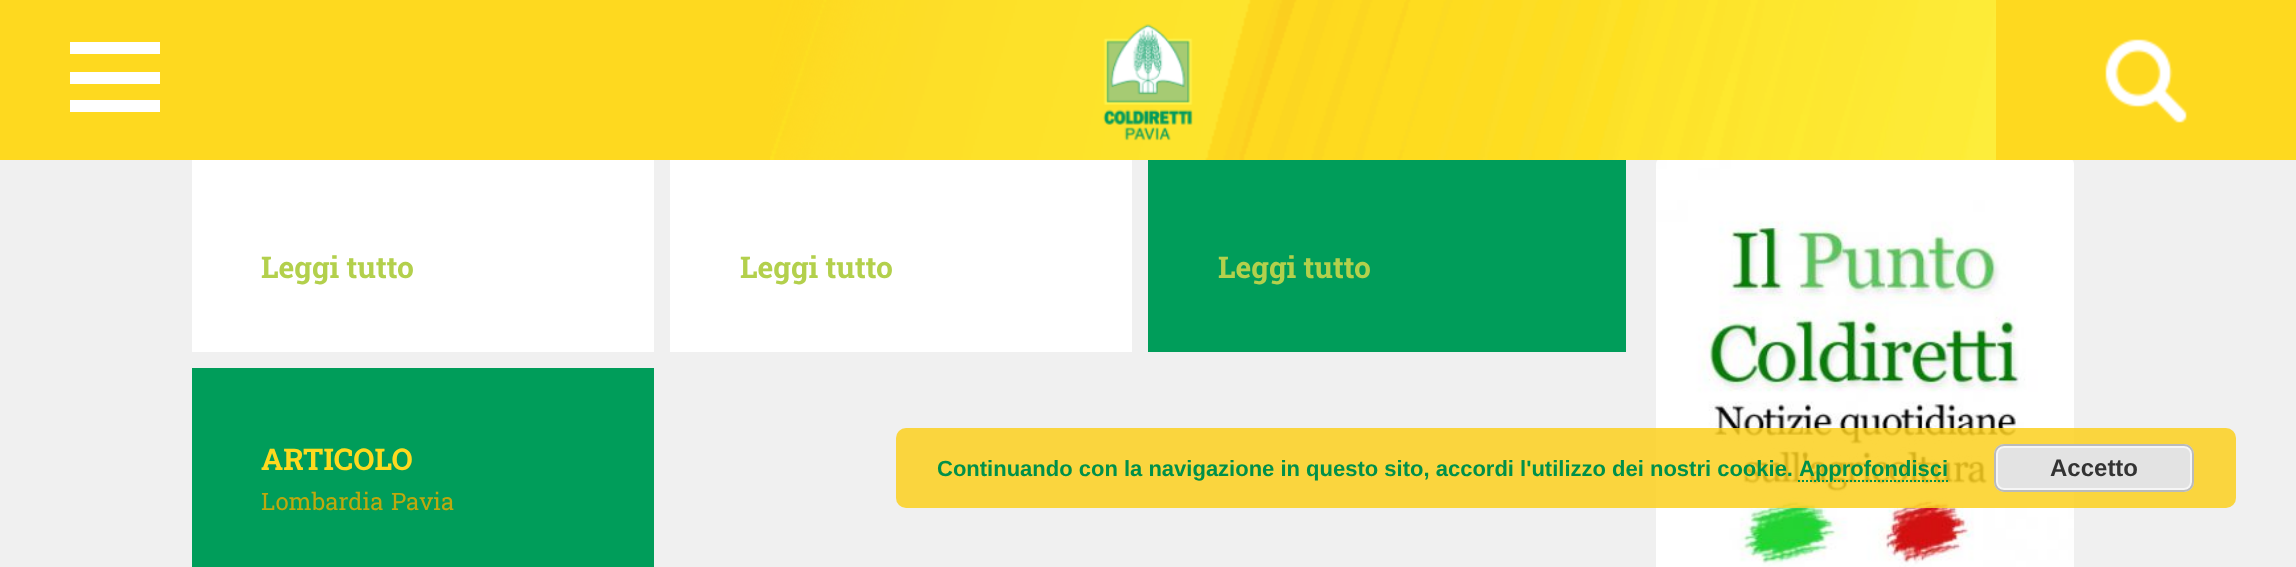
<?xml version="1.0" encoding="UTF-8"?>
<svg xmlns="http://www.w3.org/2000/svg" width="2296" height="567">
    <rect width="100%" height="100%" fill="#F0F0F0"/>
    <rect x="0" y="0" width="914" height="160" fill="#FED91F"/>
    <image x="770" y="0" width="1226" height="160" href="img_01.png"/>
    <rect x="70" y="42" width="90" height="12" fill="#FFFFFF"/>
    <rect x="70" y="72" width="90" height="12" fill="#FFFFFF"/>
    <rect x="70" y="100" width="90" height="12" fill="#FFFFFF"/>
    <image x="1103" y="24" width="90" height="117" href="img_02.png"/>
    <rect x="1996" y="0" width="300" height="160" fill="#FED91F"/>
    <image x="2105" y="39" width="82" height="84" href="img_03.png"/>
    <rect x="192" y="160" width="462" height="192" fill="#FFFFFF"/>
    <text x="261" y="278" font-family="Roboto Slab" font-size="30" font-weight="700" fill="#B3D04C">Leggi tutto</text>
    <rect x="670" y="160" width="462" height="192" fill="#FFFFFF"/>
    <text x="740" y="278" font-family="Roboto Slab" font-size="30" font-weight="700" fill="#B3D04C">Leggi tutto</text>
    <rect x="1148" y="160" width="478" height="192" fill="#009D5A"/>
    <text x="1218" y="278" font-family="Roboto Slab" font-size="30" font-weight="700" fill="#B3D04C">Leggi tutto</text>
    <rect x="192" y="368" width="462" height="199" fill="#009D5A"/>
    <text x="261" y="470" font-family="Roboto Slab" font-size="30" font-weight="700" fill="#FED91F">ARTICOLO</text>
    <text x="261" y="510" font-family="Roboto Slab" font-size="24" fill="#BEA80E">Lombardia</text>
    <text x="391" y="510" font-family="Roboto Slab" font-size="24" fill="#BEA80E">Pavia</text>
    <image x="1656" y="160" width="418" height="407" href="img_04.png"/>
    <rect x="896" y="428" width="1340" height="80" rx="10" fill="#FBD01F" fill-opacity="0.85"/>
    <text x="937" y="476" font-family="Liberation Sans" font-size="22" font-weight="700" fill="#00904A">Continuando con la navigazione in questo sito, accordi l'utilizzo dei nostri cookie.</text>
    <path d="M 1798 481 H 1948" fill="none" stroke="#00904A" stroke-width="2" stroke-dasharray="2 2"/>
    <text x="1799" y="476" font-family="Liberation Sans" font-size="22" font-weight="700" fill="#00904A">Approfondisci</text>
    <rect x="1994" y="444" width="200" height="48" rx="10" fill="#E3E3E3"/>
    <rect x="1997" y="447" width="194" height="42" rx="7" fill="none" stroke="#F6F6F6" stroke-width="2"/>
    <rect x="1995" y="445" width="198" height="46" rx="9" fill="none" stroke="#BBBBBB" stroke-width="2"/>
    <text x="2050" y="476" font-family="Liberation Sans" font-size="24" font-weight="700" fill="#333333">Accetto</text>
</svg>
